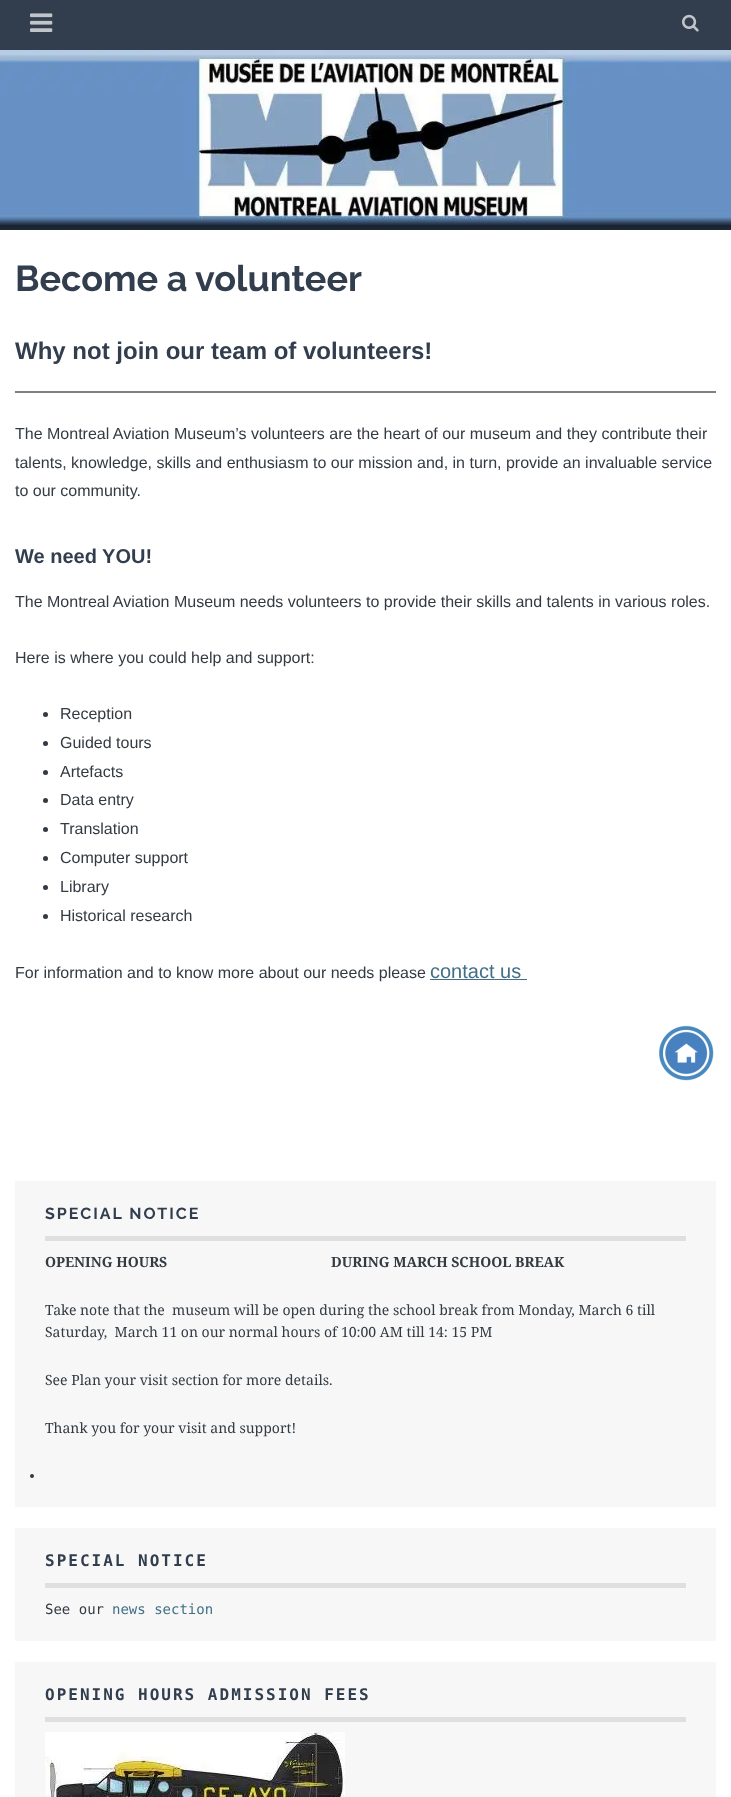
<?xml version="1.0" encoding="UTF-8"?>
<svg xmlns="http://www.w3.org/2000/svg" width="731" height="1797">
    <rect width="100%" height="100%" fill="#FFFFFF"/>
    <rect x="0" y="0" width="731" height="50" fill="#323E4E"/>
    <image x="30" y="13" width="23" height="19" href="img_01.png"/>
    <image x="682" y="14" width="17" height="18" href="img_02.png"/>
    <image x="0" y="50" width="731" height="180" href="img_03.png"/>
    <text x="15" y="291" font-family="Raleway" font-size="36" font-weight="700" fill="#323E4E">Become a volunteer</text>
    <text x="15" y="359" font-family="Liberation Sans" font-size="24" font-weight="700" fill="#323E4E">Why not join our team of volunteers!</text>
    <rect x="15" y="391" width="701" height="2" fill="#808080"/>
    <text font-family="Liberation Sans" font-size="16" fill="#333A42">
        <tspan x="15" y="439">The Montreal Aviation Museum’s volunteers are the heart of our museum and they contribute their</tspan>
        <tspan x="15" y="468">talents, knowledge, skills and enthusiasm to our mission and, in turn, provide an invaluable service</tspan>
        <tspan x="15" y="496">to our community.</tspan>
    </text>
    <text x="15" y="563" font-family="Liberation Sans" font-size="20" font-weight="700" fill="#323E4E">We need YOU!</text>
    <text x="15" y="607" font-family="Liberation Sans" font-size="16" fill="#333A42">The Montreal Aviation Museum needs volunteers to provide their skills and talents in various roles.</text>
    <text x="15" y="663" font-family="Liberation Sans" font-size="16" fill="#333A42">Here is where you could help and support:</text>
    <circle cx="45.5" cy="714.5" r="2.5" fill="#333A42"/>
    <text x="60" y="719" font-family="Liberation Sans" font-size="16" fill="#333A42">Reception</text>
    <circle cx="45.5" cy="743.5" r="2.5" fill="#333A42"/>
    <text x="60" y="748" font-family="Liberation Sans" font-size="16" fill="#333A42">Guided tours</text>
    <circle cx="45.5" cy="772.5" r="2.5" fill="#333A42"/>
    <text x="60" y="777" font-family="Liberation Sans" font-size="16" fill="#333A42">Artefacts</text>
    <circle cx="45.5" cy="800.5" r="2.5" fill="#333A42"/>
    <text x="60" y="805" font-family="Liberation Sans" font-size="16" fill="#333A42">Data entry</text>
    <circle cx="45.5" cy="829.5" r="2.5" fill="#333A42"/>
    <text x="60" y="834" font-family="Liberation Sans" font-size="16" fill="#333A42">Translation</text>
    <circle cx="45.5" cy="858.5" r="2.5" fill="#333A42"/>
    <text x="60" y="863" font-family="Liberation Sans" font-size="16" fill="#333A42">Computer support</text>
    <circle cx="45.5" cy="887.5" r="2.5" fill="#333A42"/>
    <text x="60" y="892" font-family="Liberation Sans" font-size="16" fill="#333A42">Library</text>
    <circle cx="45.5" cy="916.5" r="2.5" fill="#333A42"/>
    <text x="60" y="921" font-family="Liberation Sans" font-size="16" fill="#333A42">Historical research</text>
    <text x="15" y="978" font-family="Liberation Sans" font-size="16" fill="#333A42">For information and to know more about our needs please</text>
    <rect x="430" y="979" width="97" height="1" fill="#426F86"/>
    <text x="430" y="978" font-family="Liberation Sans" font-size="20" fill="#426F86">contact us</text>
    <image x="658" y="1025" width="56" height="56" href="img_04.png"/>
    <rect x="15" y="1181" width="701" height="326" fill="#F7F7F7"/>
    <rect x="45" y="1236" width="641" height="5" fill="#DFDFDF"/>
    <text x="45" y="1219" font-family="Raleway" font-size="16" font-weight="700" letter-spacing="2" fill="#323E4E">SPECIAL NOTICE</text>
    <text x="45" y="1267" font-family="Noto Serif" font-size="14" font-weight="700" fill="#333A42">OPENING HOURS</text>
    <text x="331" y="1267" font-family="Noto Serif" font-size="14" font-weight="700" fill="#333A42">DURING MARCH SCHOOL BREAK</text>
    <text font-family="Noto Serif" font-size="14" fill="#333A42" xml:space="preserve"><tspan x="45" y="1315">Take note that the  museum will be open during the school break from Monday, March 6 till</tspan><tspan x="45" y="1337">Saturday,  March 11 on our normal hours of 10:00 AM till 14: 15 PM</tspan></text>
    <text x="45" y="1385" font-family="Noto Serif" font-size="14" fill="#333A42">See Plan your visit section for more details.</text>
    <text x="45" y="1433" font-family="Noto Serif" font-size="14" fill="#333A42">Thank you for your visit and support!</text>
    <circle cx="32" cy="1476" r="2" fill="#333A42"/>
    <rect x="15" y="1528" width="701" height="113" fill="#F7F7F7"/>
    <rect x="45" y="1583" width="641" height="5" fill="#DFDFDF"/>
    <text x="45" y="1566" font-family="DejaVu Sans Mono" font-size="16" font-weight="700" letter-spacing="2" fill="#323E4E">SPECIAL NOTICE</text>
    <text x="45" y="1614" font-family="DejaVu Sans Mono" font-size="14" fill="#333A42">See our</text>
    <text x="112" y="1614" font-family="DejaVu Sans Mono" font-size="14" fill="#426F86">news section</text>
    <rect x="15" y="1662" width="701" height="135" fill="#F7F7F7"/>
    <rect x="45" y="1717" width="641" height="5" fill="#DFDFDF"/>
    <text x="45" y="1700" font-family="DejaVu Sans Mono" font-size="16" font-weight="700" letter-spacing="2" fill="#323E4E">OPENING HOURS ADMISSION FEES</text>
    <image x="45" y="1732" width="300" height="65" href="img_05.png"/>
</svg>
